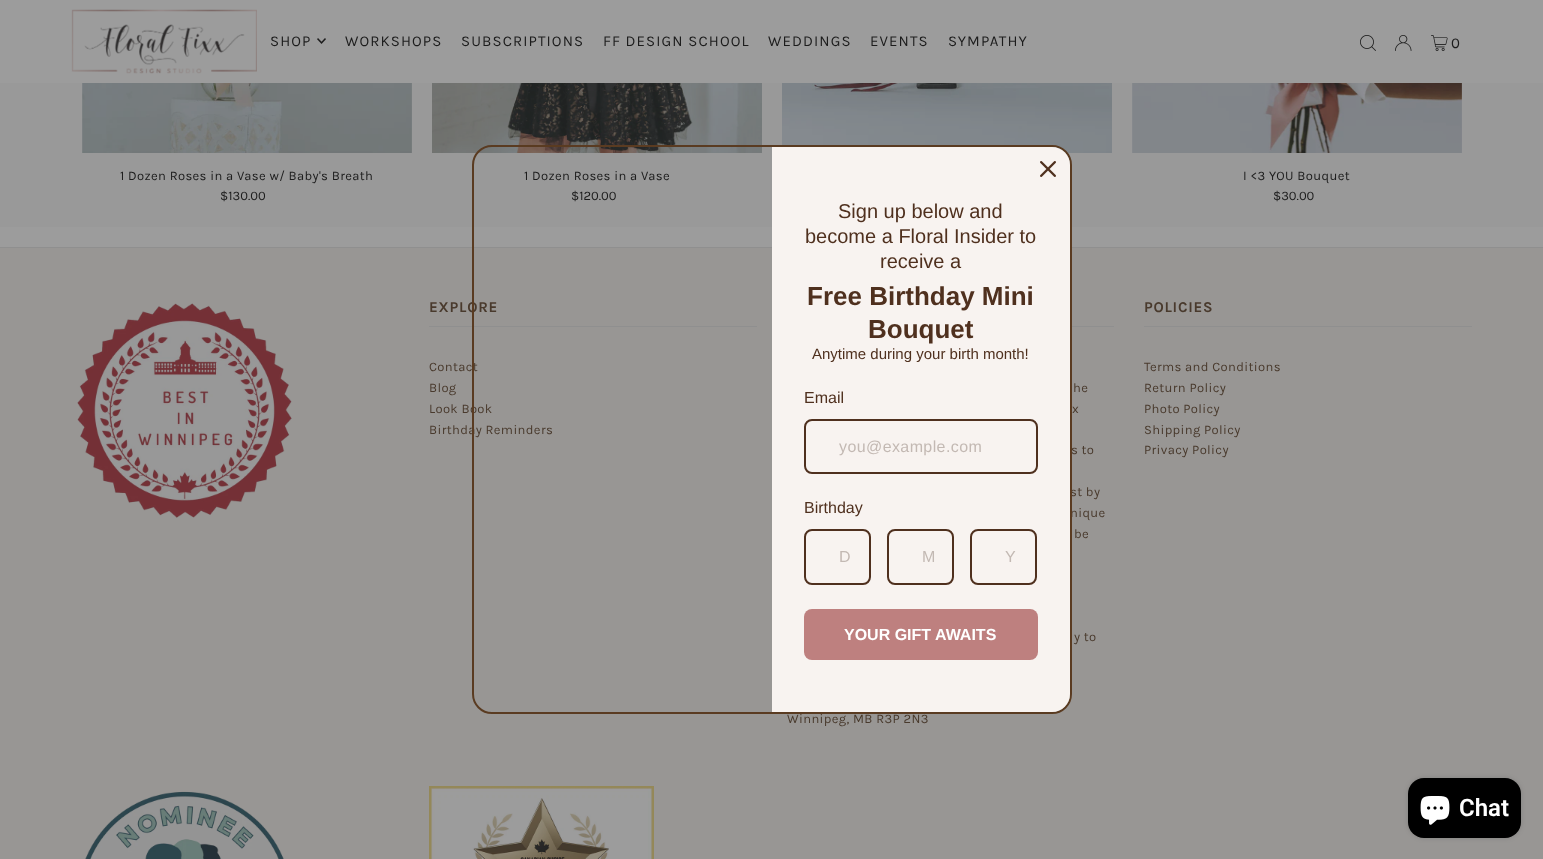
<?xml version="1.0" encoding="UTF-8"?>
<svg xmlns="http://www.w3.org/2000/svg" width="1543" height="859">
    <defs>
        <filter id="blur1" x="-50%" y="-200%" width="200%" height="500%"><feGaussianBlur stdDeviation="2.5"/></filter>
    </defs>
    <rect width="100%" height="100%" fill="#9C9C9C"/>
    <image x="71" y="9" width="186" height="65" href="img_01.png"/>
    <text x="270" y="46" font-family="Karla" font-size="15" letter-spacing="1.1" fill="#1C1C1C">SHOP</text>
    <image x="317" y="38" width="9" height="6" href="img_02.png"/>
    <text x="345" y="46" font-family="Karla" font-size="15" letter-spacing="1.1" fill="#1C1C1C">WORKSHOPS</text>
    <text x="461" y="46" font-family="Karla" font-size="15" letter-spacing="1.1" fill="#1C1C1C">SUBSCRIPTIONS</text>
    <text x="603" y="46" font-family="Karla" font-size="15" letter-spacing="1.1" fill="#1C1C1C">FF DESIGN SCHOOL</text>
    <text x="768" y="46" font-family="Karla" font-size="15" letter-spacing="1.1" fill="#1C1C1C">WEDDINGS</text>
    <text x="870" y="46" font-family="Karla" font-size="15" letter-spacing="1.1" fill="#1C1C1C">EVENTS</text>
    <text x="948" y="46" font-family="Karla" font-size="15" letter-spacing="1.1" fill="#1C1C1C">SYMPATHY</text>
    <image x="1360" y="35" width="16" height="16" href="img_03.png"/>
    <image x="1395" y="35" width="17" height="16" href="img_04.png"/>
    <image x="1431" y="35" width="17" height="16" href="img_05.png"/>
    <text x="1451" y="48" font-family="Karla" font-size="15" letter-spacing="0.35" fill="#1C1C1C">0</text>
    <rect x="0" y="83" width="1543" height="144" fill="#999999"/>
    <image x="782" y="83" width="330" height="70" href="img_06.png"/>
    <image x="82" y="83" width="330" height="70" href="img_07.png"/>
    <text x="120" y="180" font-family="Karla" font-size="13" letter-spacing="0.35" fill="#1C1C1C">1 Dozen Roses in a Vase w/ Baby's Breath</text>
    <text x="220" y="200" font-family="Karla" font-size="13" fill="#1C1C1C">$130.00</text>
    <image x="432" y="83" width="330" height="70" href="img_08.png"/>
    <text x="524" y="180" font-family="Karla" font-size="13" letter-spacing="0.35" fill="#1C1C1C">1 Dozen Roses in a Vase</text>
    <text x="571" y="200" font-family="Karla" font-size="13" fill="#1C1C1C">$120.00</text>
    <image x="1132" y="83" width="330" height="70" href="img_09.png"/>
    <text x="1243" y="180" font-family="Karla" font-size="13" letter-spacing="0.35" fill="#1C1C1C">I &lt;3 YOU Bouquet</text>
    <text x="1273" y="200" font-family="Karla" font-size="13" fill="#1C1C1C">$30.00</text>
    <rect x="0" y="248" width="1543" height="611" fill="#989694"/>
    <rect x="0" y="247" width="1543" height="1" fill="#8F8F8F"/>
    <image x="77" y="303" width="215" height="215" href="img_10.png"/>
    <rect x="429" y="326" width="328" height="1" fill="#8F8F8F"/>
    <text x="429" y="312" font-family="Karla" font-size="15" font-weight="700" letter-spacing="0.75" fill="#493A2D">EXPLORE</text>
    <text font-family="Karla" font-size="13" letter-spacing="0.35" fill="#493A2D">
        <tspan x="429" y="371">Contact</tspan>
        <tspan x="429" y="392">Blog</tspan>
        <tspan x="429" y="413">Look Book</tspan>
        <tspan x="429" y="434">Birthday Reminders</tspan>
    </text>
    <rect x="1072" y="326" width="42" height="1" fill="#8F8F8F"/>
    <text x="1073" y="392" font-family="Karla" font-size="13" letter-spacing="0.35" fill="#493A2D">he</text>
    <text x="1072" y="413" font-family="Karla" font-size="13" letter-spacing="0.35" fill="#493A2D">x</text>
    <text x="1071" y="454" font-family="Karla" font-size="13" letter-spacing="0.35" fill="#493A2D">s to</text>
    <text font-family="Karla" font-size="13" letter-spacing="0.35" fill="#493A2D">
        <tspan x="1070" y="496">st by</tspan>
        <tspan x="1070" y="517">nique</tspan>
    </text>
    <text x="1074" y="538" font-family="Karla" font-size="13" letter-spacing="0.35" fill="#493A2D">be</text>
    <text x="1074" y="641" font-family="Karla" font-size="13" letter-spacing="0.35" fill="#493A2D">y to</text>
    <text x="787" y="723" font-family="Karla" font-size="13" letter-spacing="0.35" fill="#493A2D">Winnipeg, MB R3P 2N3</text>
    <rect x="1144" y="326" width="328" height="1" fill="#8F8F8F"/>
    <text x="1144" y="312" font-family="Karla" font-size="15" font-weight="700" letter-spacing="0.75" fill="#493A2D">POLICIES</text>
    <text font-family="Karla" font-size="13" letter-spacing="0.35" fill="#493A2D">
        <tspan x="1144" y="371">Terms and Conditions</tspan>
        <tspan x="1144" y="392">Return Policy</tspan>
        <tspan x="1144" y="413">Photo Policy</tspan>
        <tspan x="1144" y="434">Shipping Policy</tspan>
        <tspan x="1144" y="454">Privacy Policy</tspan>
    </text>
    <image x="85" y="791" width="199" height="68" href="img_11.png"/>
    <image x="429" y="786" width="225" height="73" href="img_12.png"/>
    <rect x="473" y="146" width="598" height="567" rx="19" fill="none" stroke="#5A3B21" stroke-width="2"/>
    <path d="M 772 147 H 1052 C 1062 147 1070 155 1070 165 V 694 C 1070 704 1062 712 1052 712 H 772 Z" fill="#F8F3F0"/>
    <image x="1040" y="161" width="16" height="16" href="img_13.png"/>
    <text x="838" y="218" font-family="Liberation Sans" font-size="20" fill="#4F301E">Sign up below and</text>
    <text x="805" y="243" font-family="Liberation Sans" font-size="20" fill="#4F301E">become a Floral Insider to</text>
    <text x="880" y="268" font-family="Liberation Sans" font-size="20" fill="#4F301E">receive a</text>
    <text x="807" y="305" font-family="Liberation Sans" font-size="26" font-weight="700" fill="#4F301E">Free Birthday Mini</text>
    <text x="868" y="338" font-family="Liberation Sans" font-size="26" font-weight="700" fill="#4F301E">Bouquet</text>
    <text x="812" y="359" font-family="Liberation Sans" font-size="15" fill="#4F301E">Anytime during your birth month!</text>
    <text x="804" y="403" font-family="Liberation Sans" font-size="16" fill="#4F301E">Email</text>
    <rect x="805" y="420" width="232" height="53" rx="7" fill="none" stroke="#4F301E" stroke-width="2"/>
    <text x="839" y="452" font-family="Liberation Sans" font-size="16" letter-spacing="0.4" fill="#C3B9B3">you@example.com</text>
    <text x="804" y="513" font-family="Liberation Sans" font-size="16" fill="#4F301E">Birthday</text>
    <rect x="805" y="530" width="65" height="54" rx="7" fill="none" stroke="#4F301E" stroke-width="2"/>
    <text x="839" y="562" font-family="Liberation Sans" font-size="16" letter-spacing="0.4" fill="#C3B9B3">D</text>
    <rect x="888" y="530" width="65" height="54" rx="7" fill="none" stroke="#4F301E" stroke-width="2"/>
    <text x="922" y="562" font-family="Liberation Sans" font-size="16" letter-spacing="0.4" fill="#C3B9B3">M</text>
    <rect x="971" y="530" width="65" height="54" rx="7" fill="none" stroke="#4F301E" stroke-width="2"/>
    <text x="1005" y="562" font-family="Liberation Sans" font-size="16" letter-spacing="0.4" fill="#C3B9B3">Y</text>
    <rect x="804" y="609" width="234" height="51" rx="8" fill="#BE807F"/>
    <text x="844" y="640" font-family="Liberation Sans" font-size="16" font-weight="700" fill="#FFFFFF">YOUR GIFT AWAITS</text>
    <rect x="1408" y="778" width="113" height="60" rx="16" fill="#000000" fill-opacity="0.15" filter="url(#blur1)"/>
    <rect x="1408" y="778" width="113" height="60" rx="16" fill="#000000"/>
    <image x="1420" y="796" width="30" height="29" href="img_14.png"/>
    <text x="1459" y="816" font-family="Roboto" font-size="24" font-weight="600" fill="#FFFFFF">Chat</text>
</svg>
